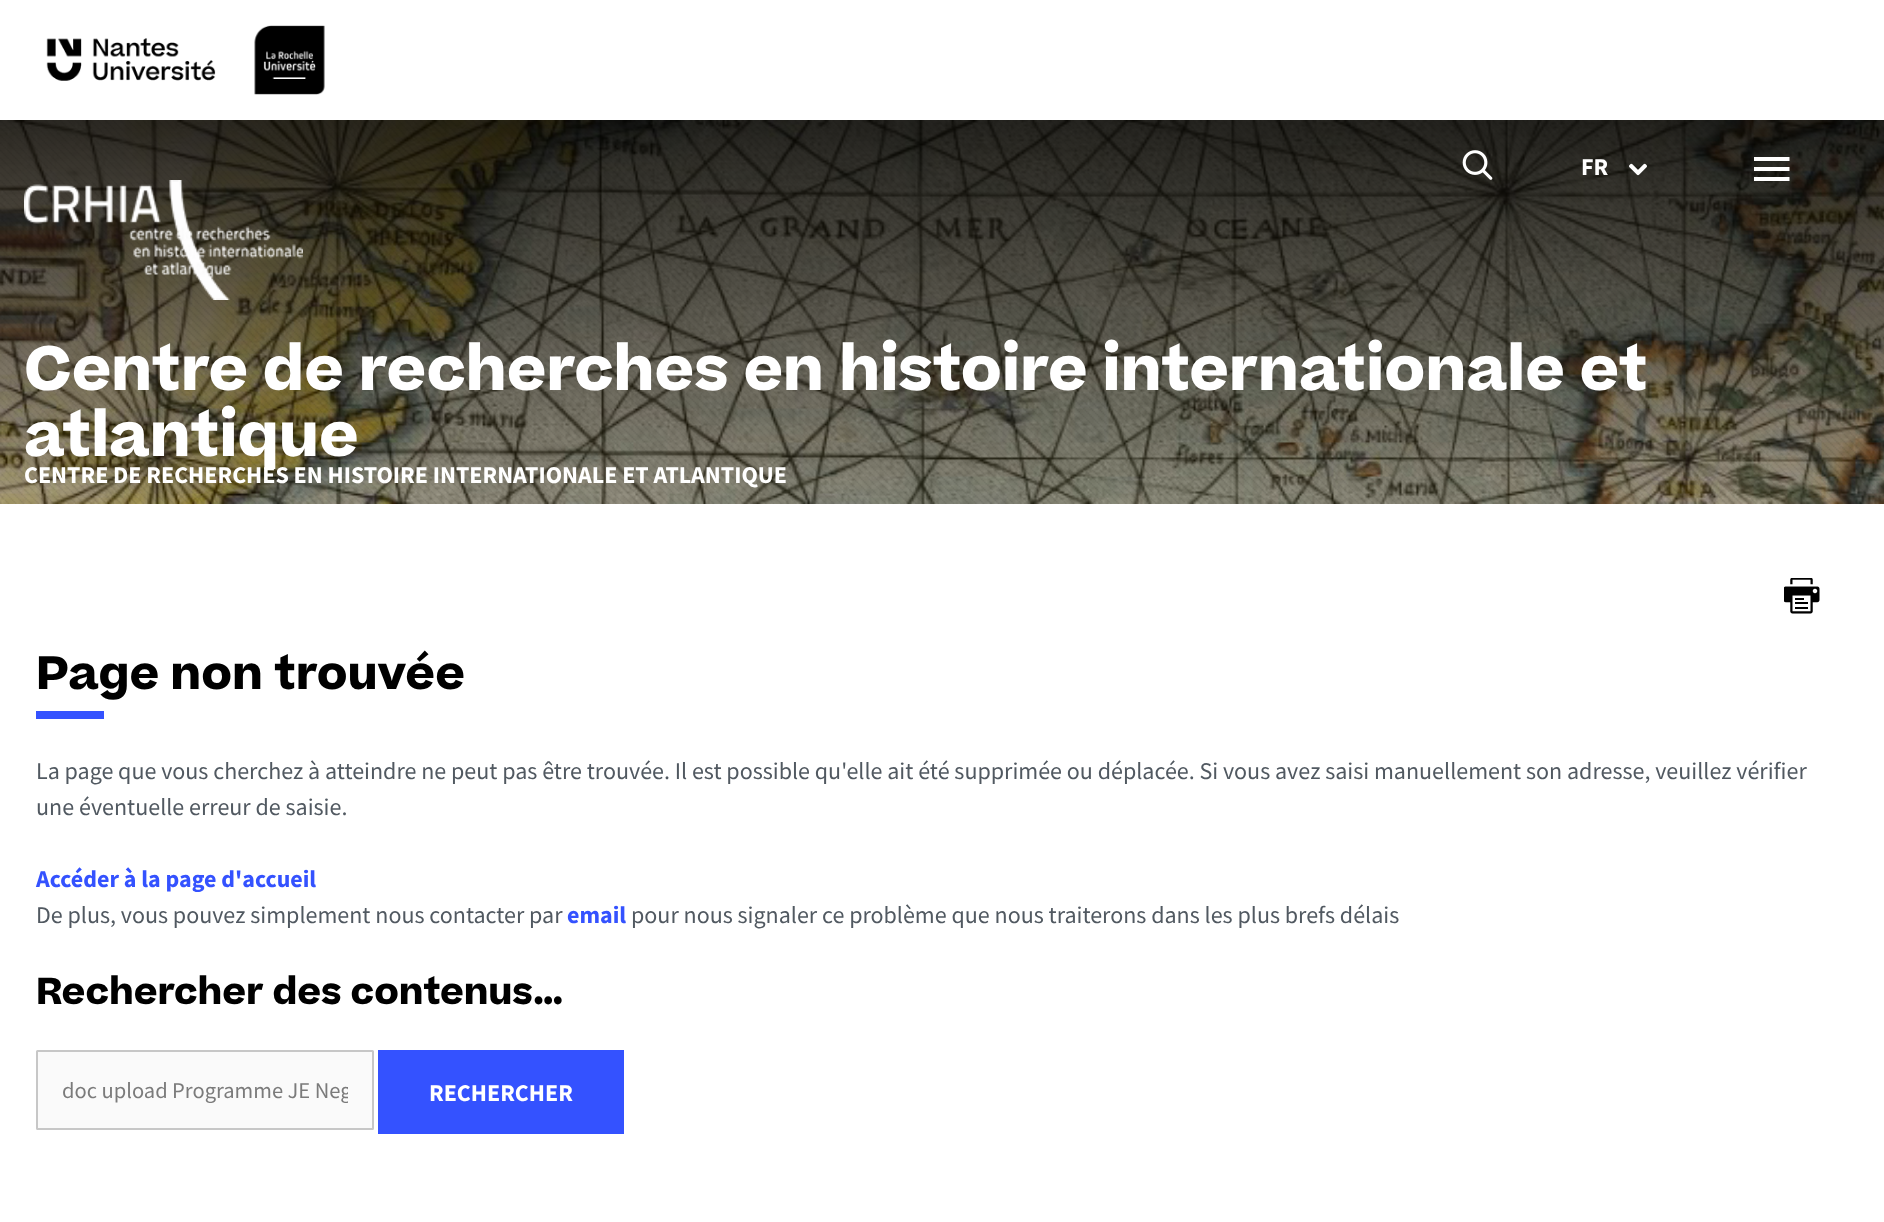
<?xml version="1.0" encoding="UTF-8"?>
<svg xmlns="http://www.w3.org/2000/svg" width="1884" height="1222">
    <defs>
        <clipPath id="clip1"><rect x="1754" y="150" width="36" height="38"/></clipPath>
        <clipPath id="clip2"><rect x="62" y="1076" width="286" height="28"/></clipPath>
    </defs>
    <rect width="100%" height="100%" fill="#FFFFFF"/>
    <image x="46" y="38" width="170" height="43" href="img_01.png"/>
    <image x="254" y="25" width="71" height="70" href="img_02.png"/>
    <image x="0" y="120" width="1884" height="384" href="img_03.png"/>
    <image x="0" y="120" width="1884" height="384" href="img_04.png"/>
    <image x="1462" y="150" width="31" height="30" href="img_05.png"/>
    <text x="1581" y="175" font-family="Source Sans Pro" font-size="24" font-weight="700" fill="#FFFFFF">FR</text>
    <image x="1629" y="163" width="18" height="13" href="img_06.png"/>
    <g clip-path="url(#clip1)">
        <path d="M 1753.5 181 H 1789.5 V 177 H 1753.5 Z M 1753.5 171 H 1789.5 V 167 H 1753.5 Z M 1753.5 157 V 161 H 1789.5 V 157 Z" fill="#FFFFFF"/>
    </g>
    <image x="24" y="180" width="279" height="120" href="img_07.png"/>
    <text font-family="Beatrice" font-size="60" font-weight="700" fill="#FFFFFF">
        <tspan x="24" y="390">Centre de recherches en histoire internationale et</tspan>
        <tspan x="24" y="456">atlantique</tspan>
    </text>
    <text x="24" y="483" font-family="Source Sans Pro" font-size="24" font-weight="700" fill="#FFFFFF">CENTRE DE RECHERCHES EN HISTOIRE INTERNATIONALE ET ATLANTIQUE</text>
    <image x="1784" y="578" width="36" height="36" href="img_08.png"/>
    <text x="36" y="689" font-family="Beatrice" font-size="45" font-weight="700" fill="#000000">Page non trouvée</text>
    <rect x="36" y="711" width="68" height="8" fill="#3452FF"/>
    <text font-family="Source Sans Pro" font-size="24" fill="#515961">
        <tspan x="36" y="779">La page que vous cherchez à atteindre ne peut pas être trouvée. Il est possible qu'elle ait été supprimée ou déplacée. Si vous avez saisi manuellement son adresse, veuillez vérifier</tspan>
        <tspan x="36" y="815">une éventuelle erreur de saisie.</tspan>
    </text>
    <text x="36" y="887" font-family="Source Sans Pro" font-size="24" font-weight="700" fill="#3452FF">Accéder à la page d'accueil</text>
    <text x="36" y="923" font-family="Source Sans Pro" font-size="24" fill="#515961">De plus, vous pouvez simplement nous contacter par</text>
    <text x="567" y="923" font-family="Source Sans Pro" font-size="24" font-weight="700" fill="#3452FF">email</text>
    <text x="631" y="923" font-family="Source Sans Pro" font-size="24" fill="#515961">pour nous signaler ce problème que nous traiterons dans les plus brefs délais</text>
    <text x="36" y="1004" font-family="Beatrice" font-size="36" font-weight="700" fill="#000000">Rechercher des contenus…</text>
    <rect x="37" y="1051" width="336" height="78" rx="0.5" fill="#FAFAFA" stroke="#C7C7C7" stroke-width="2"/>
    <g clip-path="url(#clip2)">
        <text x="62" y="1098" font-family="Source Sans Pro" font-size="22.5" fill="#7B7B7B">doc upload Programme JE Neg</text>
    </g>
    <rect x="378" y="1050" width="246" height="84" fill="#3452FF"/>
    <text x="429" y="1101" font-family="Source Sans Pro" font-size="24" font-weight="700" fill="#FFFFFF">RECHERCHER</text>
</svg>
